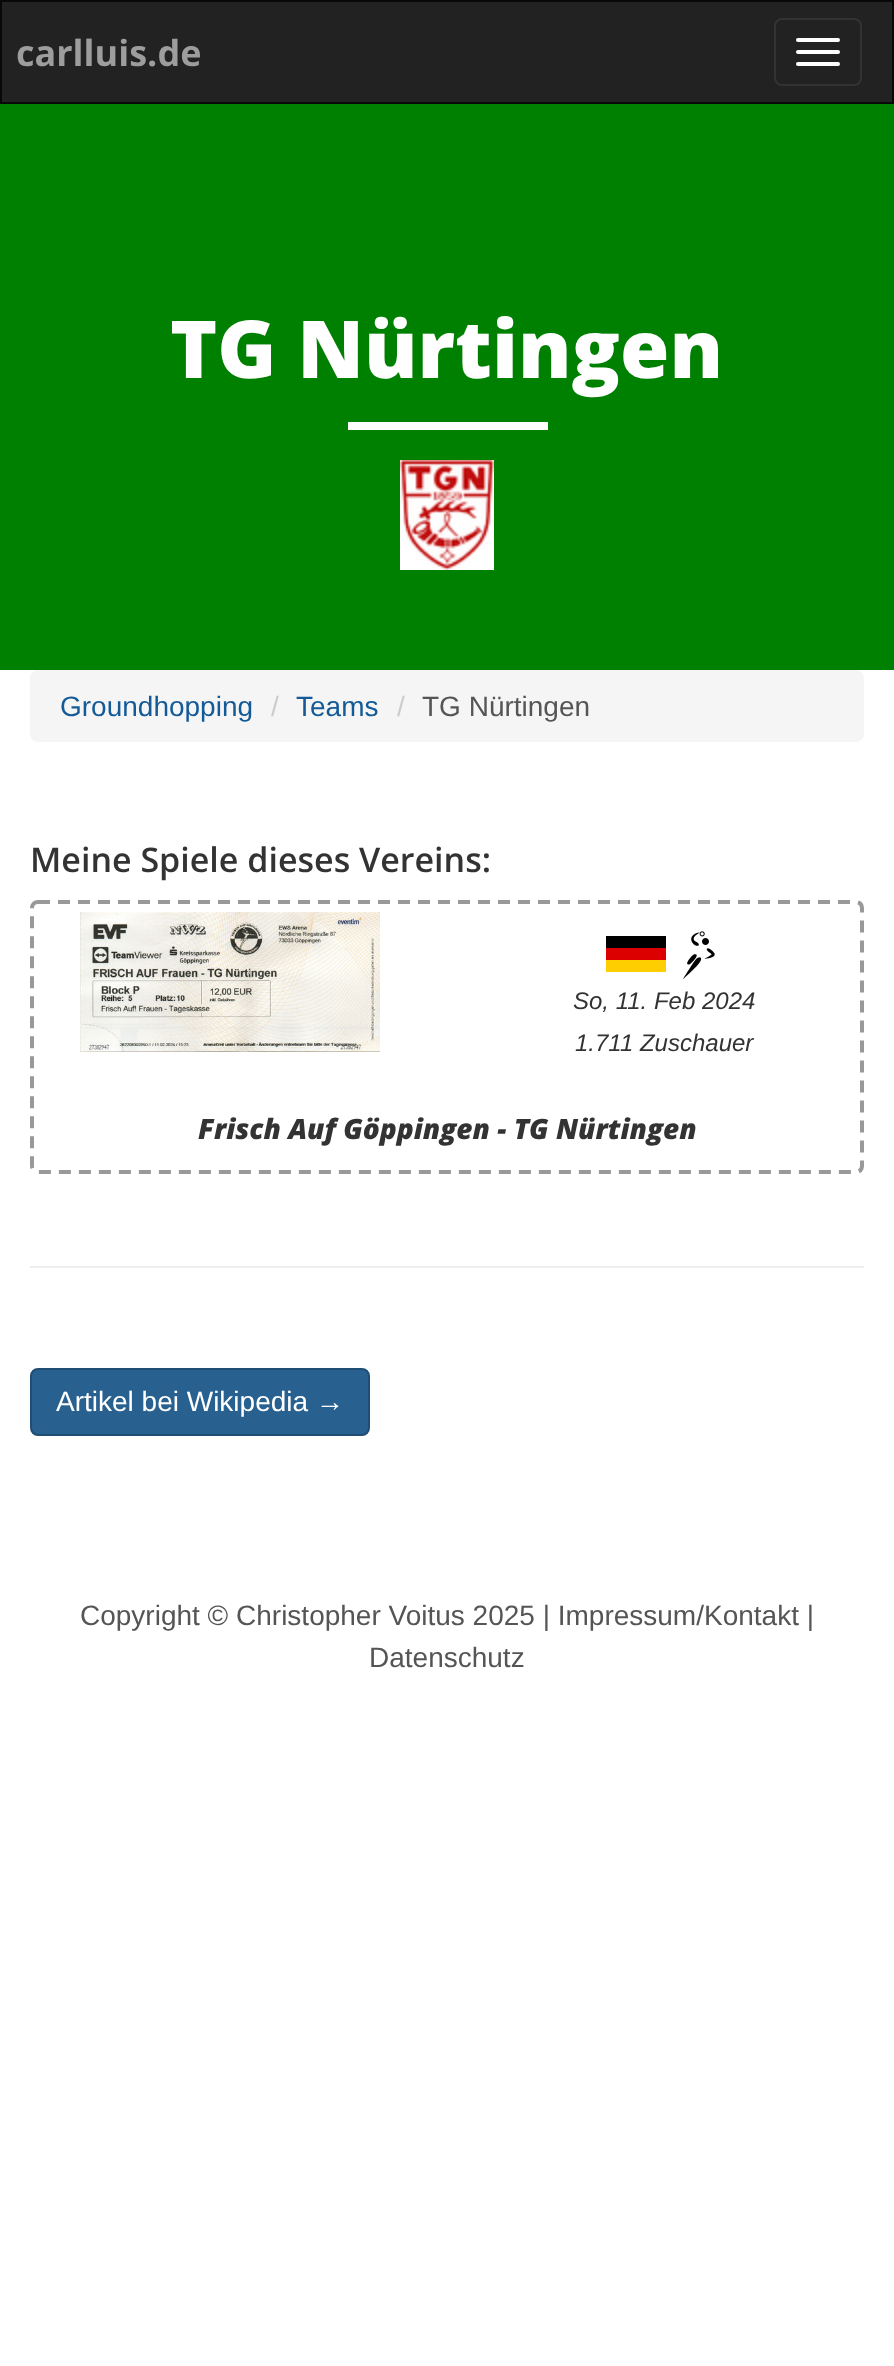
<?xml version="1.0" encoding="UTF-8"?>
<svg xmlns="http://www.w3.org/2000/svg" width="894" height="2366">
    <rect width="100%" height="100%" fill="#FFFFFF"/>
    <rect x="1" y="1" width="892" height="102" fill="#222222" stroke="#080808" stroke-width="2"/>
    <text x="16" y="66" font-family="Open Sans" font-size="36" font-weight="700" fill="#9D9D9D">carlluis.de</text>
    <rect x="775" y="19" width="86" height="66" rx="7" fill="none" stroke="#333333" stroke-width="2"/>
    <rect x="796" y="38" width="44" height="4" rx="2" fill="#FFFFFF"/>
    <rect x="796" y="50" width="44" height="4" rx="2" fill="#FFFFFF"/>
    <rect x="796" y="62" width="44" height="4" rx="2" fill="#FFFFFF"/>
    <rect x="0" y="104" width="894" height="566" fill="#008000"/>
    <text x="170" y="378" font-family="Open Sans" font-size="80" font-weight="800" fill="#FFFFFF">TG Nürtingen</text>
    <rect x="348" y="422" width="200" height="8" fill="#FFFFFF"/>
    <image x="400" y="460" width="94" height="110" href="img_01.png"/>
    <rect x="30" y="670" width="834" height="72" rx="8" fill="#F5F5F5"/>
    <text x="60" y="716" font-family="Liberation Sans" font-size="28" fill="#135A97">Groundhopping</text>
    <text x="271" y="716" font-family="Liberation Sans" font-size="28" fill="#CCCCCC">/</text>
    <text x="296" y="716" font-family="Liberation Sans" font-size="28" fill="#135A97">Teams</text>
    <text x="397" y="716" font-family="Liberation Sans" font-size="28" fill="#CCCCCC">/</text>
    <text x="422" y="716" font-family="Liberation Sans" font-size="28" fill="#555555">TG Nürtingen</text>
    <text x="30" y="872" font-family="Open Sans" font-size="34" font-weight="600" fill="#333333">Meine Spiele dieses Vereins:</text>
    <path d="M 38 902 H 856 C 859.5 902 862 904.5 862 908 V 1166 C 862 1169.5 859.5 1172 856 1172 H 38 C 34.5 1172 32 1169.5 32 1166 V 908 C 32 904.5 34.5 902 38 902 Z" fill="none" stroke="#999999" stroke-width="4" stroke-dasharray="12 8"/>
    <image x="80" y="912" width="300" height="140" href="img_02.png"/>
    <rect x="606" y="936" width="60" height="12" fill="#000000"/>
    <image x="683" y="931" width="32" height="48" href="img_03.png"/>
    <rect x="606" y="948" width="60" height="12" fill="#DD0000"/>
    <rect x="606" y="960" width="60" height="12" fill="#FFCE00"/>
    <text x="573" y="1009" font-family="Liberation Sans" font-size="24" font-style="italic" fill="#333333">So, 11. Feb 2024</text>
    <text x="575" y="1051" font-family="Liberation Sans" font-size="24" font-style="italic" fill="#333333">1.711 Zuschauer</text>
    <text x="198" y="1139" font-family="Open Sans" font-size="28" font-weight="800" font-style="italic" fill="#333333">Frisch Auf Göppingen - TG Nürtingen</text>
    <rect x="30" y="1266" width="834" height="2" fill="#EEEEEE"/>
    <rect x="31" y="1369" width="338" height="66" rx="7" fill="#286090" stroke="#204D74" stroke-width="2"/>
    <text x="56" y="1411" font-family="Liberation Sans" font-size="28" fill="#FFFFFF">Artikel bei Wikipedia →</text>
    <text x="80" y="1625" font-family="Liberation Sans" font-size="28" fill="#555555">Copyright © Christopher Voitus 2025 | Impressum/Kontakt |</text>
    <text x="369" y="1667" font-family="Liberation Sans" font-size="28" fill="#555555">Datenschutz</text>
</svg>
